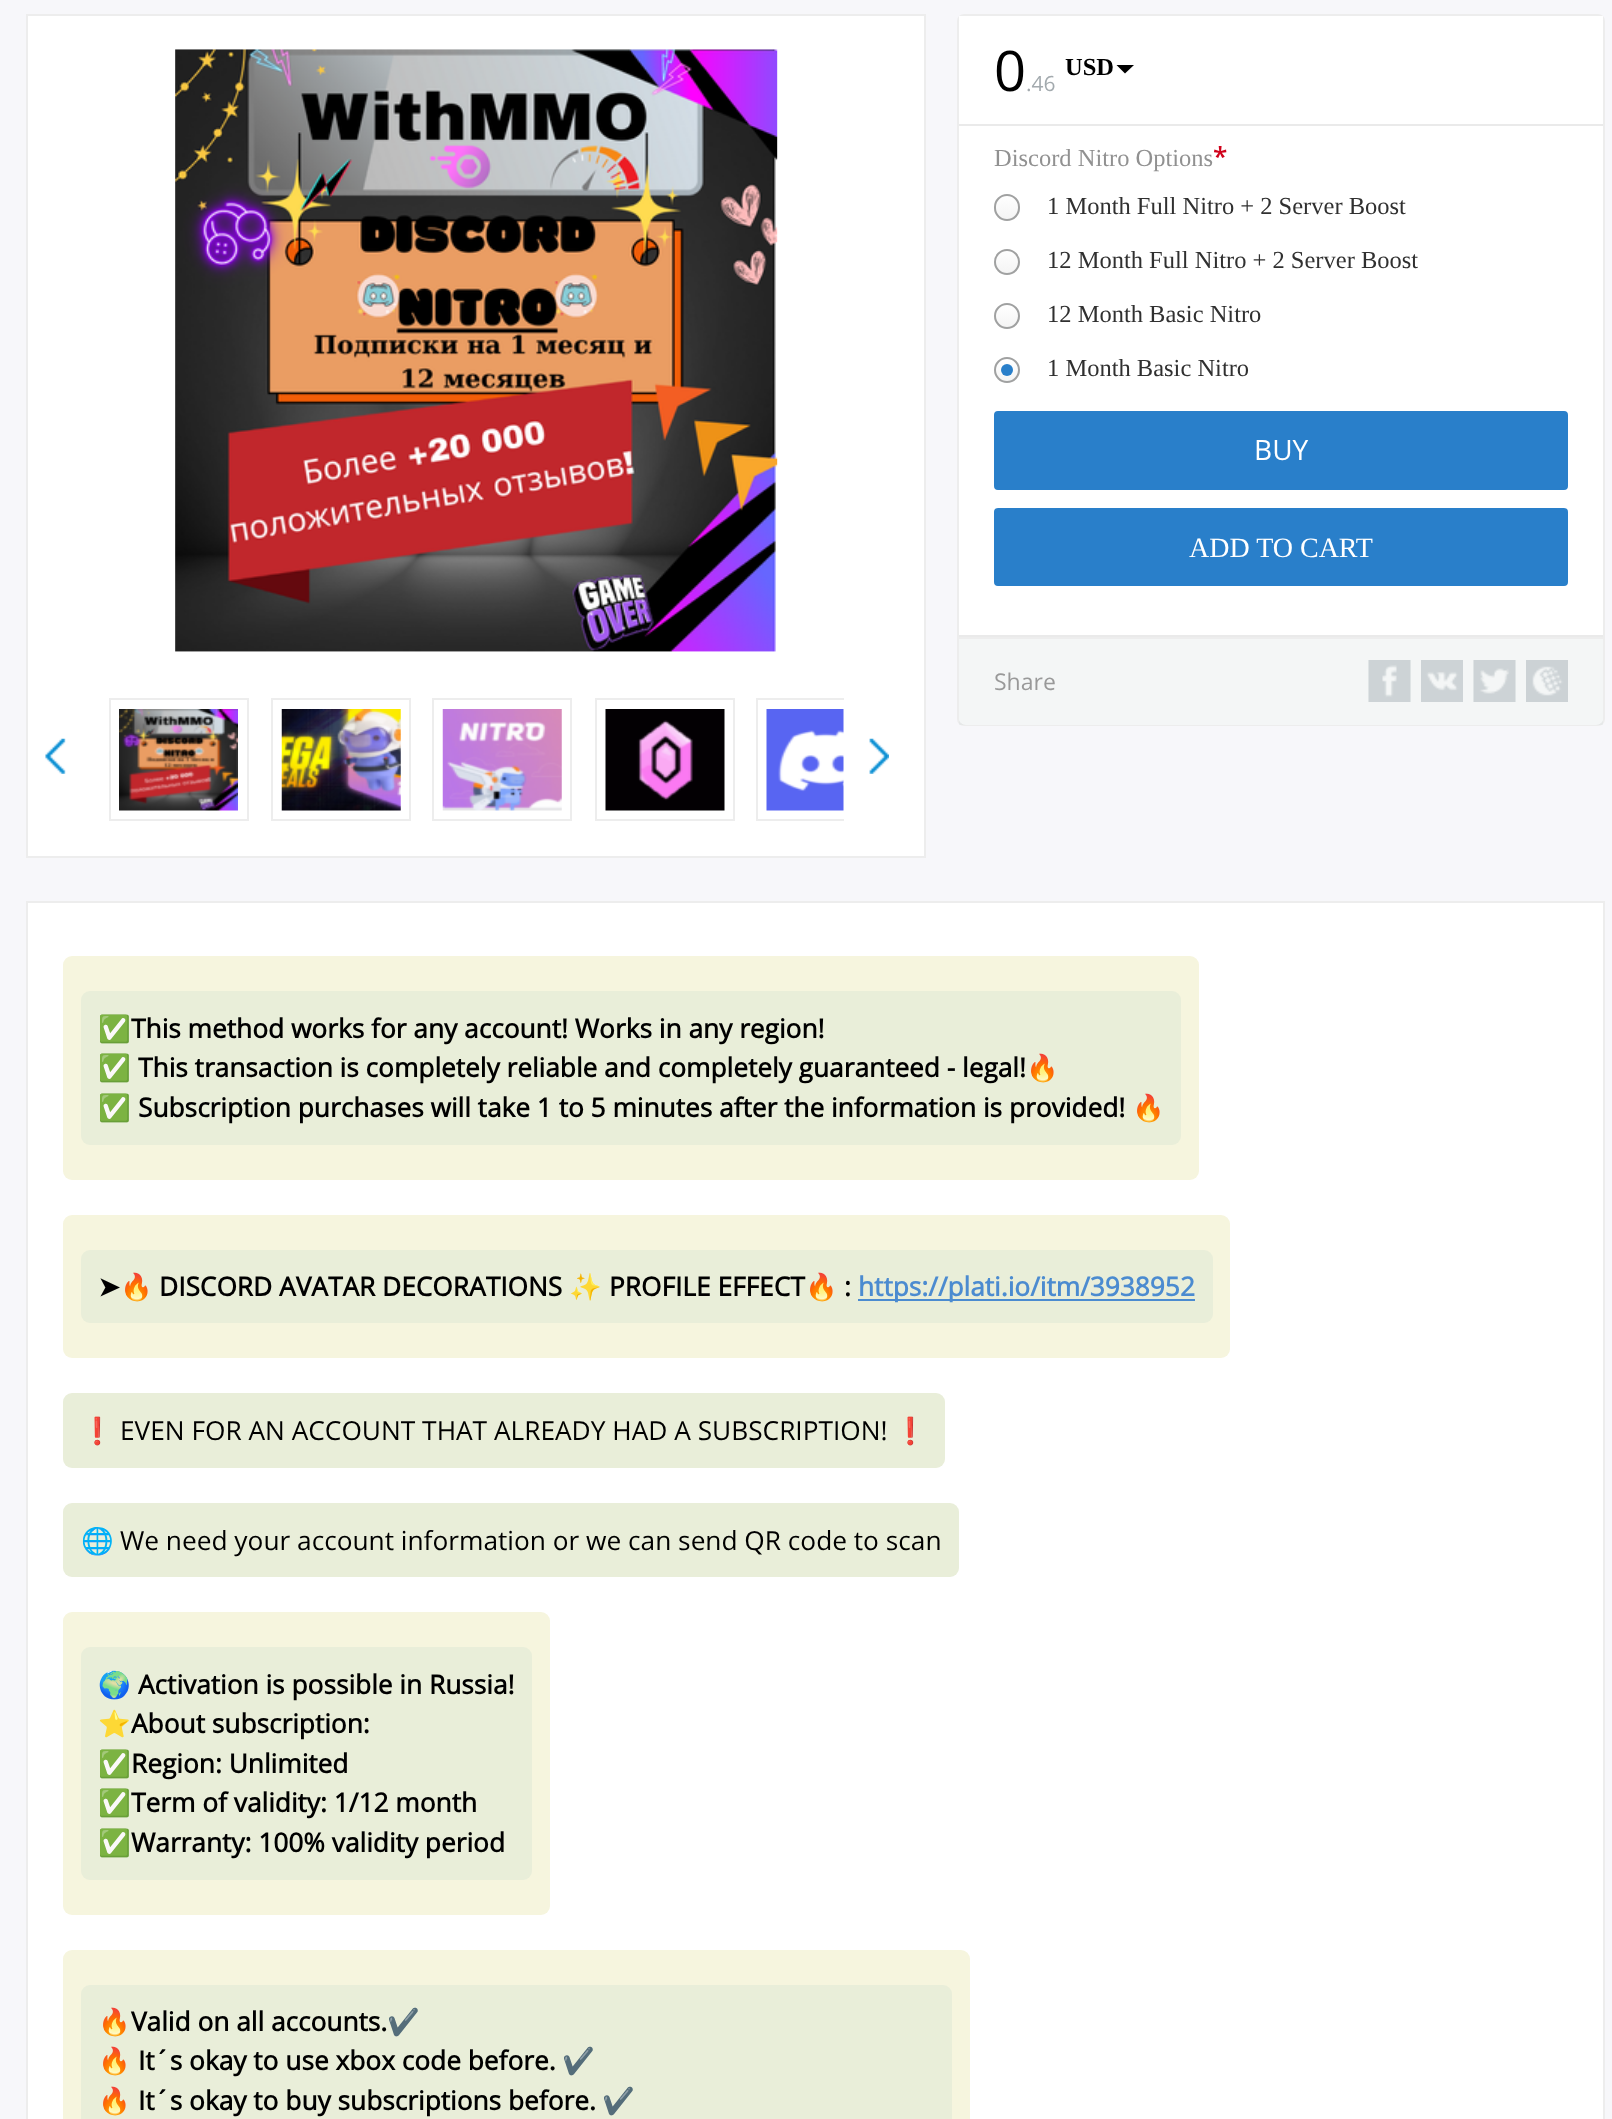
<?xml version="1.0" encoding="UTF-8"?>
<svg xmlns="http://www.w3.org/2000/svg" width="1612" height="2119">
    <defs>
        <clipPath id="clip1"><rect x="994" y="194" width="26" height="27" rx="13"/></clipPath>
        <linearGradient id="g1" gradientUnits="userSpaceOnUse" x1="1007" y1="196" x2="1007" y2="219"><stop offset="0" stop-color="#FFFFFF"/><stop offset="1" stop-color="#F4F4F4"/></linearGradient>
        <clipPath id="clip2"><rect x="994" y="249" width="26" height="26" rx="13"/></clipPath>
        <linearGradient id="g2" gradientUnits="userSpaceOnUse" x1="1007" y1="250" x2="1007" y2="273"><stop offset="0" stop-color="#FFFFFF"/><stop offset="1" stop-color="#F4F4F4"/></linearGradient>
        <clipPath id="clip3"><rect x="994" y="303" width="26" height="26" rx="13"/></clipPath>
        <linearGradient id="g3" gradientUnits="userSpaceOnUse" x1="1007" y1="305" x2="1007" y2="327"><stop offset="0" stop-color="#FFFFFF"/><stop offset="1" stop-color="#F4F4F4"/></linearGradient>
        <clipPath id="clip4"><rect x="994" y="357" width="26" height="26" rx="13"/></clipPath>
        <linearGradient id="g4" gradientUnits="userSpaceOnUse" x1="1007" y1="359" x2="1007" y2="382"><stop offset="0" stop-color="#FFFFFF"/><stop offset="1" stop-color="#F4F4F4"/></linearGradient>
        <clipPath id="clip5"><rect x="109" y="684" width="735" height="137"/></clipPath>
    </defs>
    <rect width="100%" height="100%" fill="#F7F7FA"/>
    <rect x="28" y="16" width="896" height="840" fill="#FFFFFF"/>
    <rect x="26" y="14" width="900" height="2" fill="#EDEDED"/>
    <rect x="924" y="14" width="2" height="844" fill="#EDEDED"/>
    <rect x="26" y="14" width="2" height="670" fill="#EDEDED"/>
    <image x="175" y="49" width="603" height="603" href="img_01.png"/>
    <rect x="958" y="15" width="646" height="710" rx="6" fill="#FFFFFF" stroke="#EDEDED" stroke-width="2"/>
    <rect x="959" y="16" width="644" height="709" rx="7" fill="#FFFFFF"/>
    <rect x="959" y="16" width="644" height="4" fill="#FFFFFF"/>
    <rect x="959" y="124" width="644" height="2" fill="#EAEAEA"/>
    <text x="994" y="91" font-family="Open Sans" font-size="56" fill="#000000">0</text>
    <text x="1065" y="75" font-family="Liberation Serif" font-size="24.5" font-weight="700" fill="#000000">USD</text>
    <path d="M 1116.5 65 H 1134 L 1125 73.5 Z" fill="#000000"/>
    <text x="1026" y="91" font-family="Open Sans" font-size="21" fill="#A3AAAE">.46</text>
    <text x="994" y="166" font-family="Liberation Serif" font-size="24.5" fill="#919191">Discord Nitro Options</text>
    <text x="1213" y="166" font-family="Open Sans" font-size="26.25" font-weight="600" fill="#D0021B">*</text>
    <g clip-path="url(#clip1)">
        <rect x="994" y="196" width="26" height="23" fill="url(#g1)"/>
    </g>
    <rect x="995" y="195" width="24" height="25" rx="12" fill="none" stroke="#A0A1A1" stroke-width="2"/>
    <text x="1047" y="214" font-family="Liberation Serif" font-size="24.5" fill="#303030">1 Month Full Nitro + 2 Server Boost</text>
    <g clip-path="url(#clip2)">
        <rect x="994" y="250" width="26" height="23" fill="url(#g2)"/>
    </g>
    <circle cx="1007" cy="262" r="12" fill="none" stroke="#A0A1A1" stroke-width="2"/>
    <text x="1047" y="268" font-family="Liberation Serif" font-size="24.5" fill="#303030">12 Month Full Nitro + 2 Server Boost</text>
    <g clip-path="url(#clip3)">
        <rect x="994" y="305" width="26" height="22" fill="url(#g3)"/>
    </g>
    <circle cx="1007" cy="316" r="12" fill="none" stroke="#A0A1A1" stroke-width="2"/>
    <text x="1047" y="322" font-family="Liberation Serif" font-size="24.5" fill="#303030">12 Month Basic Nitro</text>
    <g clip-path="url(#clip4)">
        <rect x="994" y="359" width="26" height="23" fill="url(#g4)"/>
    </g>
    <circle cx="1007" cy="370" r="12" fill="none" stroke="#A0A1A1" stroke-width="2"/>
    <text x="1047" y="376" font-family="Liberation Serif" font-size="24.5" fill="#303030">1 Month Basic Nitro</text>
    <circle cx="1007" cy="370" r="6" fill="#297FCA"/>
    <rect x="995" y="412" width="572" height="77" rx="3" fill="#297FCA" stroke="#297FCA" stroke-width="2"/>
    <text x="1254" y="460" font-family="Open Sans" font-size="28" fill="#FFFFFF">BUY</text>
    <rect x="995" y="509" width="572" height="76" rx="3" fill="#297FCA" stroke="#297FCA" stroke-width="2"/>
    <text x="1189" y="557" font-family="Liberation Serif" font-size="28" fill="#FFFFFF">ADD TO CART</text>
    <rect x="959" y="635" width="644" height="2" fill="#EAEAEA"/>
    <rect x="959" y="639" width="644" height="86" fill="#CFD5D8" fill-opacity="0.22"/>
    <rect x="959" y="637" width="644" height="2" fill="#EDEDED"/>
    <text x="994" y="690" font-family="Open Sans" font-size="23" fill="#999999">Share</text>
    <image x="1368" y="660" width="43" height="42" href="img_02.png"/>
    <image x="1421" y="660" width="42" height="42" href="img_03.png"/>
    <image x="1473" y="660" width="43" height="42" href="img_04.png"/>
    <image x="1526" y="660" width="42" height="42" href="img_05.png"/>
    <rect x="26" y="856" width="900" height="2" fill="#EDEDED"/>
    <rect x="26" y="684" width="2" height="174" fill="#EDEDED"/>
    <rect x="110" y="699" width="138" height="121" fill="none" stroke="#EDEDED" stroke-width="2"/>
    <image x="119" y="709" width="119" height="102" href="img_06.png"/>
    <rect x="272" y="699" width="138" height="121" fill="none" stroke="#EDEDED" stroke-width="2"/>
    <image x="281" y="709" width="120" height="102" href="img_07.png"/>
    <rect x="433" y="699" width="138" height="121" fill="none" stroke="#EDEDED" stroke-width="2"/>
    <image x="442" y="709" width="120" height="102" href="img_08.png"/>
    <rect x="596" y="699" width="138" height="121" fill="none" stroke="#EDEDED" stroke-width="2"/>
    <image x="605" y="709" width="120" height="102" href="img_09.png"/>
    <g clip-path="url(#clip5)">
        <rect x="757" y="699" width="138" height="121" fill="none" stroke="#EDEDED" stroke-width="2"/>
    </g>
    <image x="766" y="709" width="78" height="102" href="img_10.png"/>
    <image x="45" y="738" width="21" height="36" href="img_11.png"/>
    <image x="869" y="738" width="20" height="36" href="img_12.png"/>
    <rect x="27" y="902" width="1577" height="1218" fill="#FFFFFF" stroke="#EDEDED" stroke-width="2"/>
    <rect x="63" y="956" width="1136" height="224" rx="9" fill="#F6F5DE"/>
    <rect x="81" y="991" width="1100" height="154" rx="9" fill="#E9EED9"/>
    <text x="98" y="1038" font-family="Noto Color Emoji" font-size="26.25" font-weight="700" fill="#000000">✅</text>
    <text x="131" y="1038" font-family="Open Sans" font-size="26.25" font-weight="700" fill="#000000">This method works for any account! Works in any region!</text>
    <text x="98" y="1077" font-family="Noto Color Emoji" font-size="26.25" font-weight="700" fill="#000000">✅</text>
    <text x="138" y="1077" font-family="Open Sans" font-size="26.25" font-weight="700" fill="#000000">This transaction is completely reliable and completely guaranteed - legal!</text>
    <text x="1026" y="1077" font-family="Noto Color Emoji" font-size="26.25" font-weight="700" fill="#000000">🔥</text>
    <text x="98" y="1117" font-family="Noto Color Emoji" font-size="26.25" font-weight="700" fill="#000000">✅</text>
    <text x="138" y="1117" font-family="Open Sans" font-size="26.25" font-weight="700" fill="#000000">Subscription purchases will take 1 to 5 minutes after the information is provided!</text>
    <text x="1132" y="1117" font-family="Noto Color Emoji" font-size="26.25" font-weight="700" fill="#000000">🔥</text>
    <rect x="63" y="1215" width="1167" height="143" rx="9" fill="#F6F5DE"/>
    <rect x="81" y="1250" width="1132" height="73" rx="9" fill="#E9EED9"/>
    <text x="98" y="1296" font-family="DejaVu Sans" font-size="26.25" font-weight="700" fill="#000000">➤</text>
    <text x="120" y="1296" font-family="Noto Color Emoji" font-size="26.25" font-weight="700" fill="#000000">🔥</text>
    <text x="159" y="1296" font-family="Open Sans" font-size="26.25" font-weight="700" fill="#000000">DISCORD AVATAR DECORATIONS</text>
    <text x="569" y="1296" font-family="Noto Color Emoji" font-size="26.25" font-weight="700" fill="#000000">✨</text>
    <text x="609" y="1296" font-family="Open Sans" font-size="26.25" font-weight="700" fill="#000000">PROFILE EFFECT</text>
    <text x="805" y="1296" font-family="Noto Color Emoji" font-size="26.25" font-weight="700" fill="#000000">🔥</text>
    <text x="844" y="1296" font-family="Open Sans" font-size="26.25" font-weight="700" fill="#000000">:</text>
    <rect x="858" y="1299" width="337" height="2" fill="#4B8BD0"/>
    <text x="858" y="1296" font-family="Open Sans" font-size="26.25" font-weight="700" fill="#4B8BD0">https://plati.io/itm/3938952</text>
    <rect x="63" y="1393" width="882" height="75" rx="9" fill="#E9EED9"/>
    <text x="81" y="1440" font-family="Noto Color Emoji" font-size="26.25" fill="#000000">❗</text>
    <text x="120" y="1440" font-family="Open Sans" font-size="26.25" fill="#000000">EVEN FOR AN ACCOUNT THAT ALREADY HAD A SUBSCRIPTION!</text>
    <text x="894" y="1440" font-family="Noto Color Emoji" font-size="26.25" fill="#000000">❗</text>
    <rect x="63" y="1503" width="896" height="74" rx="9" fill="#E9EED9"/>
    <text x="81" y="1550" font-family="Noto Color Emoji" font-size="26.25" fill="#000000">🌐</text>
    <text x="120" y="1550" font-family="Open Sans" font-size="26.25" fill="#000000">We need your account information or we can send QR code to scan</text>
    <rect x="63" y="1612" width="487" height="303" rx="9" fill="#F6F5DE"/>
    <rect x="81" y="1647" width="451" height="233" rx="9" fill="#E9EED9"/>
    <text x="98" y="1694" font-family="Noto Color Emoji" font-size="26.25" font-weight="700" fill="#000000">🌍</text>
    <text x="138" y="1694" font-family="Open Sans" font-size="26.25" font-weight="700" fill="#000000">Activation is possible in Russia!</text>
    <text x="98" y="1733" font-family="Noto Color Emoji" font-size="26.25" font-weight="700" fill="#000000">⭐️</text>
    <text x="131" y="1733" font-family="Open Sans" font-size="26.25" font-weight="700" fill="#000000">About subscription:</text>
    <text x="98" y="1773" font-family="Noto Color Emoji" font-size="26.25" font-weight="700" fill="#000000">✅</text>
    <text x="131" y="1773" font-family="Open Sans" font-size="26.25" font-weight="700" fill="#000000">Region: Unlimited</text>
    <text x="98" y="1812" font-family="Noto Color Emoji" font-size="26.25" font-weight="700" fill="#000000">✅</text>
    <text x="131" y="1812" font-family="Open Sans" font-size="26.25" font-weight="700" fill="#000000">Term of validity: 1/12 month</text>
    <text x="98" y="1852" font-family="Noto Color Emoji" font-size="26.25" font-weight="700" fill="#000000">✅</text>
    <text x="131" y="1852" font-family="Open Sans" font-size="26.25" font-weight="700" fill="#000000">Warranty: 100% validity period</text>
    <rect x="63" y="1950" width="907" height="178" rx="9" fill="#F6F5DE"/>
    <rect x="81" y="1985" width="871" height="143" rx="9" fill="#E9EED9"/>
    <text x="98" y="2031" font-family="Noto Color Emoji" font-size="26.25" font-weight="700" fill="#000000">🔥</text>
    <text x="131" y="2031" font-family="Open Sans" font-size="26.25" font-weight="700" fill="#000000">Valid on all accounts.</text>
    <text x="387" y="2031" font-family="Noto Color Emoji" font-size="26.25" font-weight="700" fill="#000000">✔️</text>
    <text x="98" y="2070" font-family="Noto Color Emoji" font-size="26.25" font-weight="700" fill="#000000">🔥</text>
    <text x="138" y="2070" font-family="Open Sans" font-size="26.25" font-weight="700" fill="#000000">It´s okay to use xbox code before.</text>
    <text x="562" y="2070" font-family="Noto Color Emoji" font-size="26.25" font-weight="700" fill="#000000">✔️</text>
    <text x="98" y="2110" font-family="Noto Color Emoji" font-size="26.25" font-weight="700" fill="#000000">🔥</text>
    <text x="138" y="2110" font-family="Open Sans" font-size="26.25" font-weight="700" fill="#000000">It´s okay to buy subscriptions before.</text>
    <text x="602" y="2110" font-family="Noto Color Emoji" font-size="26.25" font-weight="700" fill="#000000">✔️</text>
</svg>
